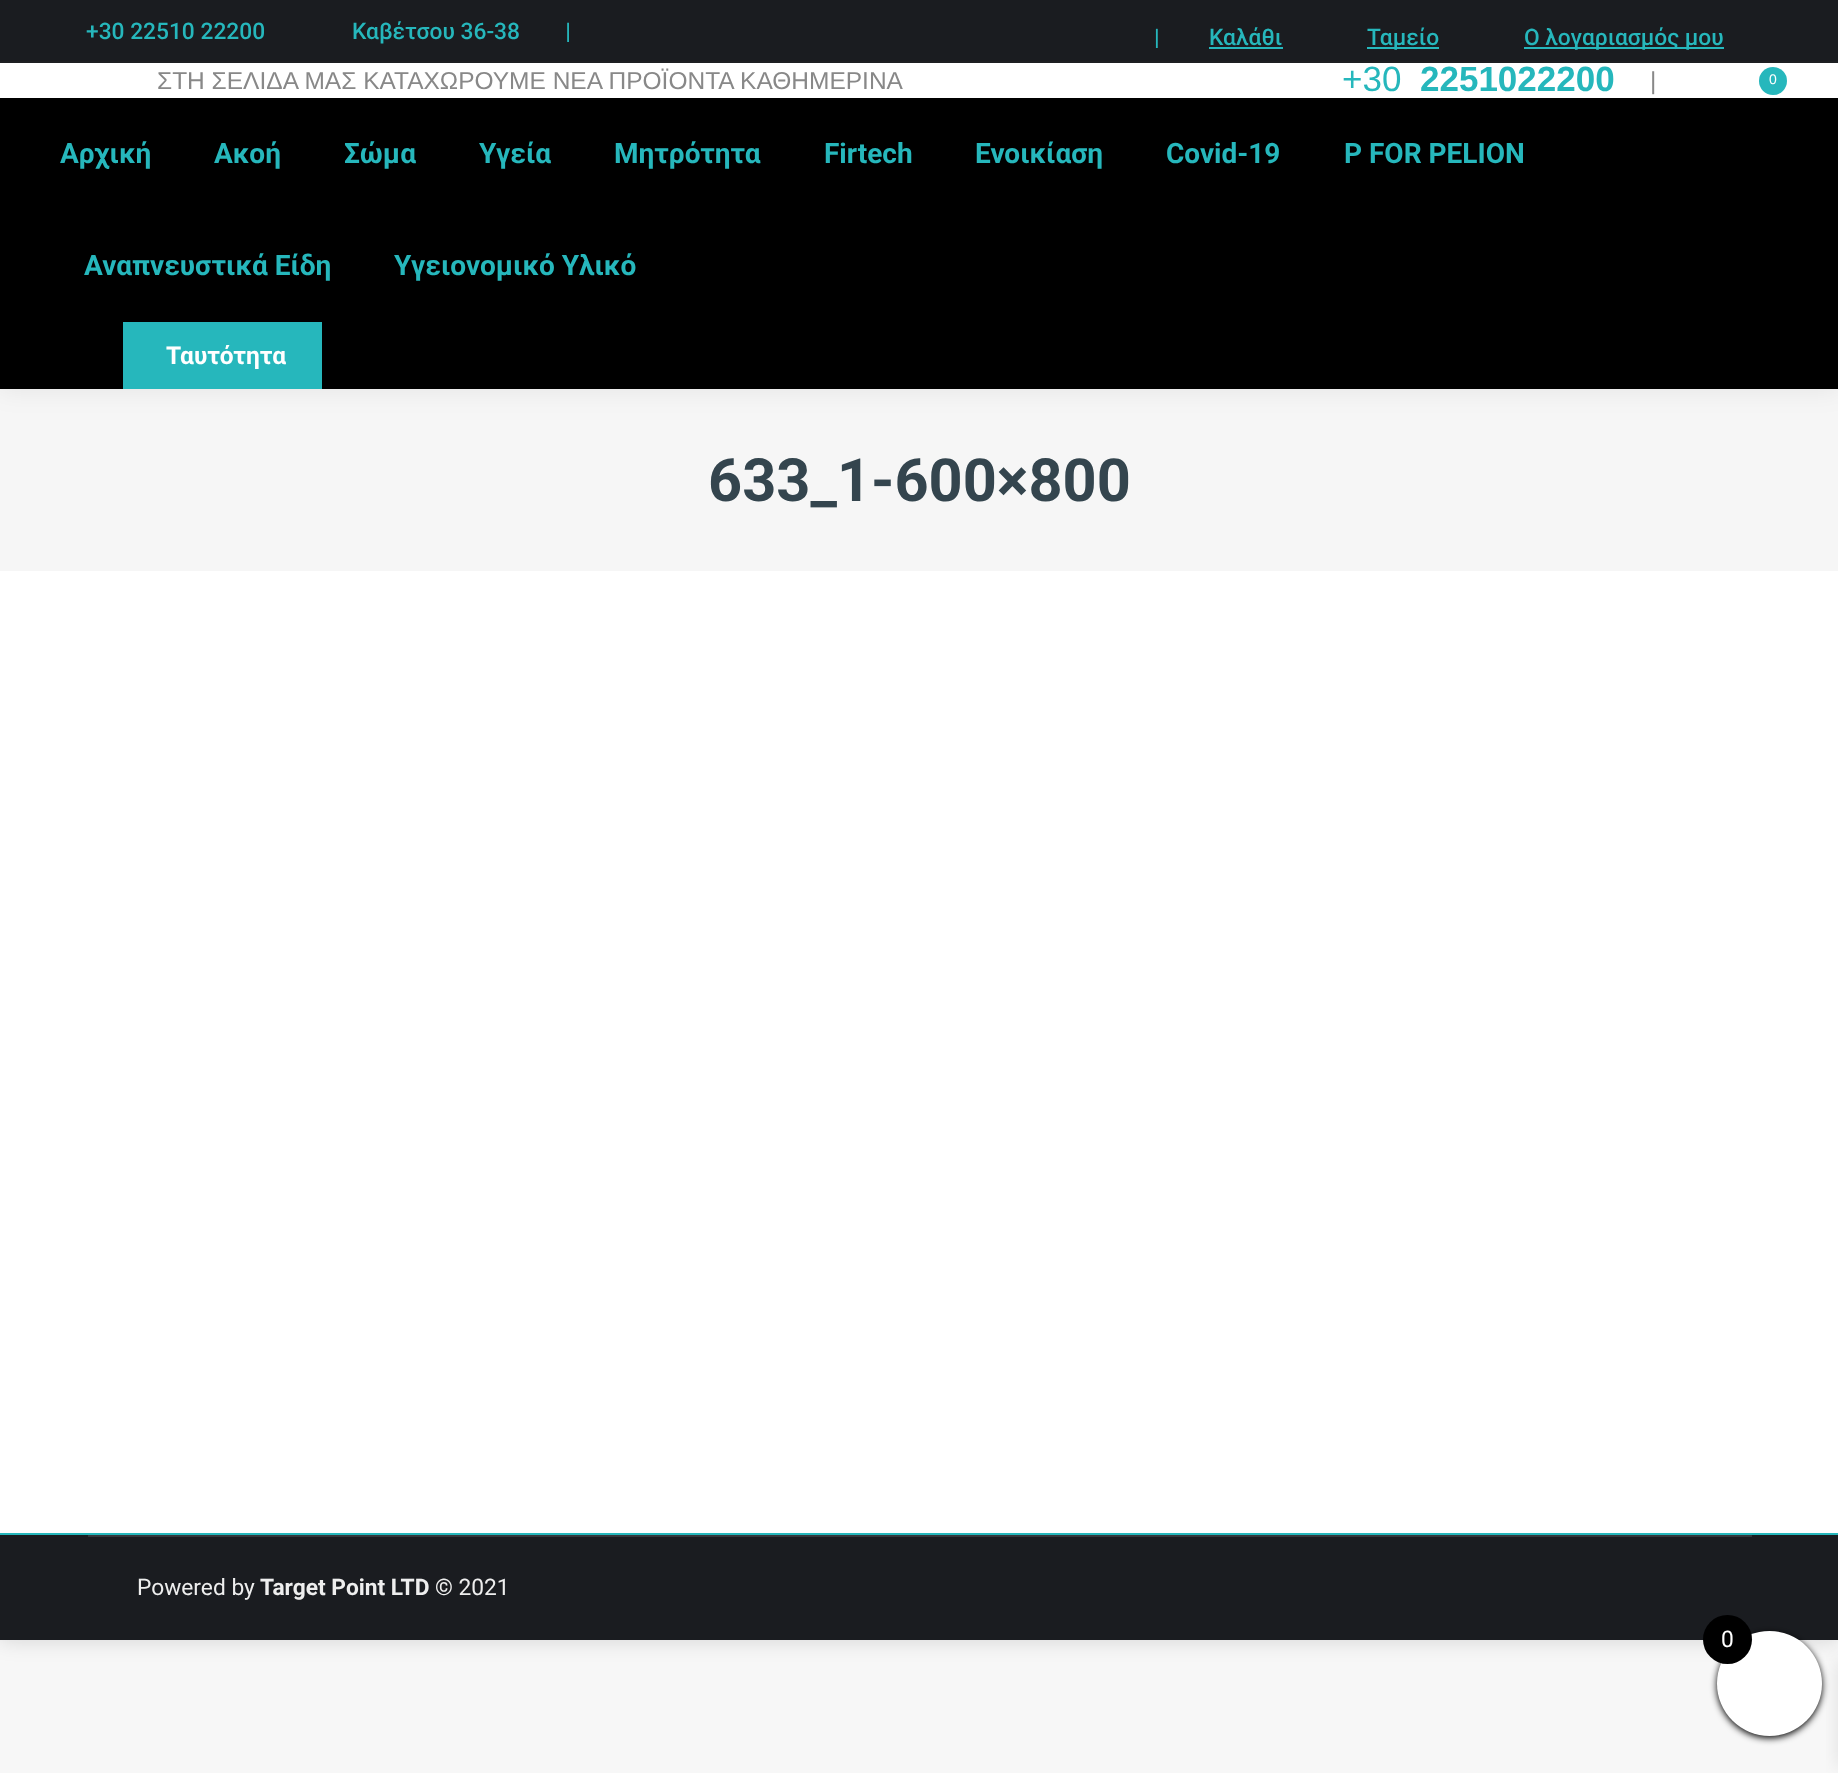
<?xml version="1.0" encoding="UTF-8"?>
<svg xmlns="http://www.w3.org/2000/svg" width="1838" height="1773">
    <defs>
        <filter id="blur1" x="-50%" y="-200%" width="200%" height="500%"><feGaussianBlur stdDeviation="10.5"/></filter>
        <filter id="blur2" x="-50%" y="-200%" width="200%" height="500%"><feGaussianBlur stdDeviation="13"/></filter>
        <filter id="blur3" x="-50%" y="-200%" width="200%" height="500%"><feGaussianBlur stdDeviation="3.5"/></filter>
        <filter id="blur4" x="-50%" y="-200%" width="200%" height="500%"><feGaussianBlur stdDeviation="9"/></filter>
    </defs>
    <rect width="100%" height="100%" fill="#F7F7F7"/>
    <rect x="0" y="0" width="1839" height="1640" fill="#000000" fill-opacity="0.15" filter="url(#blur1)"/>
    <rect x="0" y="571" width="1838" height="962" fill="#FFFFFF"/>
    <rect x="0" y="389" width="1838" height="182" fill="#F6F6F6"/>
    <rect x="-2" y="-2" width="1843" height="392" fill="#000000" fill-opacity="0.07" filter="url(#blur2)"/>
    <rect x="0" y="63" width="1838" height="35" fill="#FFFFFF"/>
    <rect x="0" y="0" width="1838" height="61" fill="#1A1C20"/>
    <text x="86" y="39" font-family="Roboto" font-size="22.75" font-weight="500" fill="#26B7BC">+30 22510 22200</text>
    <text x="352" y="39" font-family="Roboto" font-size="22.75" font-weight="500" fill="#26B7BC" xml:space="preserve">Καβέτσου 36-38        |</text>
    <text x="1154" y="45" font-family="Roboto" font-size="22.75" font-weight="500" fill="#26B7BC">|</text>
    <text x="1209" y="45" font-family="Roboto" font-size="22.75" font-weight="500" fill="#26B7BC">Καλάθι</text>
    <rect x="1209" y="47" width="74" height="2" fill="#26B7BC"/>
    <rect x="1367" y="47" width="72" height="2" fill="#26B7BC"/>
    <text x="1367" y="45" font-family="Roboto" font-size="22.75" font-weight="500" fill="#26B7BC">Ταμείο</text>
    <rect x="1524" y="47" width="200" height="2" fill="#26B7BC"/>
    <text x="1524" y="45" font-family="Roboto" font-size="22.75" font-weight="500" fill="#26B7BC">Ο λογαριασμός μου</text>
    <rect x="0" y="61" width="1838" height="2" fill="#1D1F22"/>
    <text x="157" y="89" font-family="Liberation Sans" font-size="24.5" fill="#888888">ΣΤΗ ΣΕΛΙΔΑ ΜΑΣ ΚΑΤΑΧΩΡΟΥΜΕ ΝΕΑ ΠΡΟΪΟΝΤΑ ΚΑΘΗΜΕΡΙΝΑ</text>
    <text x="1342" y="91" font-family="Liberation Sans" font-size="35" fill="#26B7BC">+30</text>
    <text x="1420" y="91" font-family="Liberation Sans" font-size="35" font-weight="700" fill="#26B7BC">2251022200</text>
    <text x="1650" y="89" font-family="Liberation Sans" font-size="24.5" fill="#888888">|</text>
    <circle cx="1773" cy="81" r="14" fill="#26B7BC"/>
    <text x="1769" y="84" font-family="Liberation Sans" font-size="14" fill="#FFFFFF">0</text>
    <rect x="0" y="98" width="1838" height="291" fill="#000000"/>
    <text x="60" y="163" font-family="Roboto" font-size="28" font-weight="700" fill="#26B7BC">Αρχική</text>
    <text x="214" y="163" font-family="Roboto" font-size="28" font-weight="700" fill="#26B7BC">Ακοή</text>
    <text x="344" y="163" font-family="Roboto" font-size="28" font-weight="700" fill="#26B7BC">Σώμα</text>
    <text x="479" y="163" font-family="Roboto" font-size="28" font-weight="700" fill="#26B7BC">Υγεία</text>
    <text x="614" y="163" font-family="Roboto" font-size="28" font-weight="700" fill="#26B7BC">Μητρότητα</text>
    <text x="824" y="163" font-family="Roboto" font-size="28" font-weight="700" fill="#26B7BC">Firtech</text>
    <text x="975" y="163" font-family="Roboto" font-size="28" font-weight="700" fill="#26B7BC">Ενοικίαση</text>
    <text x="1166" y="163" font-family="Roboto" font-size="28" font-weight="700" fill="#26B7BC">Covid-19</text>
    <text x="1344" y="163" font-family="Roboto" font-size="28" font-weight="700" fill="#26B7BC">P FOR PELION</text>
    <text x="84" y="275" font-family="Roboto" font-size="28" font-weight="700" fill="#26B7BC">Αναπνευστικά Είδη</text>
    <text x="394" y="275" font-family="Roboto" font-size="28" font-weight="700" fill="#26B7BC">Υγειονομικό Υλικό</text>
    <rect x="123" y="322" width="199" height="67" fill="#26B7BC"/>
    <text x="166" y="364" font-family="Roboto" font-size="24.5" font-weight="700" fill="#FFFFFF">Ταυτότητα</text>
    <text x="708" y="501" font-family="Roboto" font-size="59.5" font-weight="700" fill="#34454E">633_1-600×800</text>
    <rect x="0" y="1535" width="1838" height="105" fill="#1A1C20"/>
    <rect x="0" y="1533" width="1838" height="2" fill="#26B7BC"/>
    <rect x="88" y="1535" width="1664" height="2" fill="#35373B"/>
    <text x="137" y="1595" font-family="Roboto" font-size="22.75" fill="#EEEEEE">Powered by</text>
    <text x="260" y="1595" font-family="Roboto" font-size="22.75" font-weight="700" fill="#EEEEEE">Target Point LTD</text>
    <text x="435" y="1595" font-family="Roboto" font-size="22.75" fill="#EEEEEE">© 2021</text>
    <rect x="1717" y="1633" width="105" height="105" rx="52.5" fill="#000000" filter="url(#blur3)"/>
    <rect x="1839" y="1661" width="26" height="105" fill="#000000" fill-opacity="0.1" filter="url(#blur4)"/>
    <circle cx="1769.5" cy="1683.5" r="52.5" fill="#FFFFFF"/>
    <circle cx="1727.5" cy="1639.5" r="24.5" fill="#000000"/>
    <text x="1721" y="1647" font-family="Roboto" font-size="22.75" fill="#FFFFFF">0</text>
</svg>
